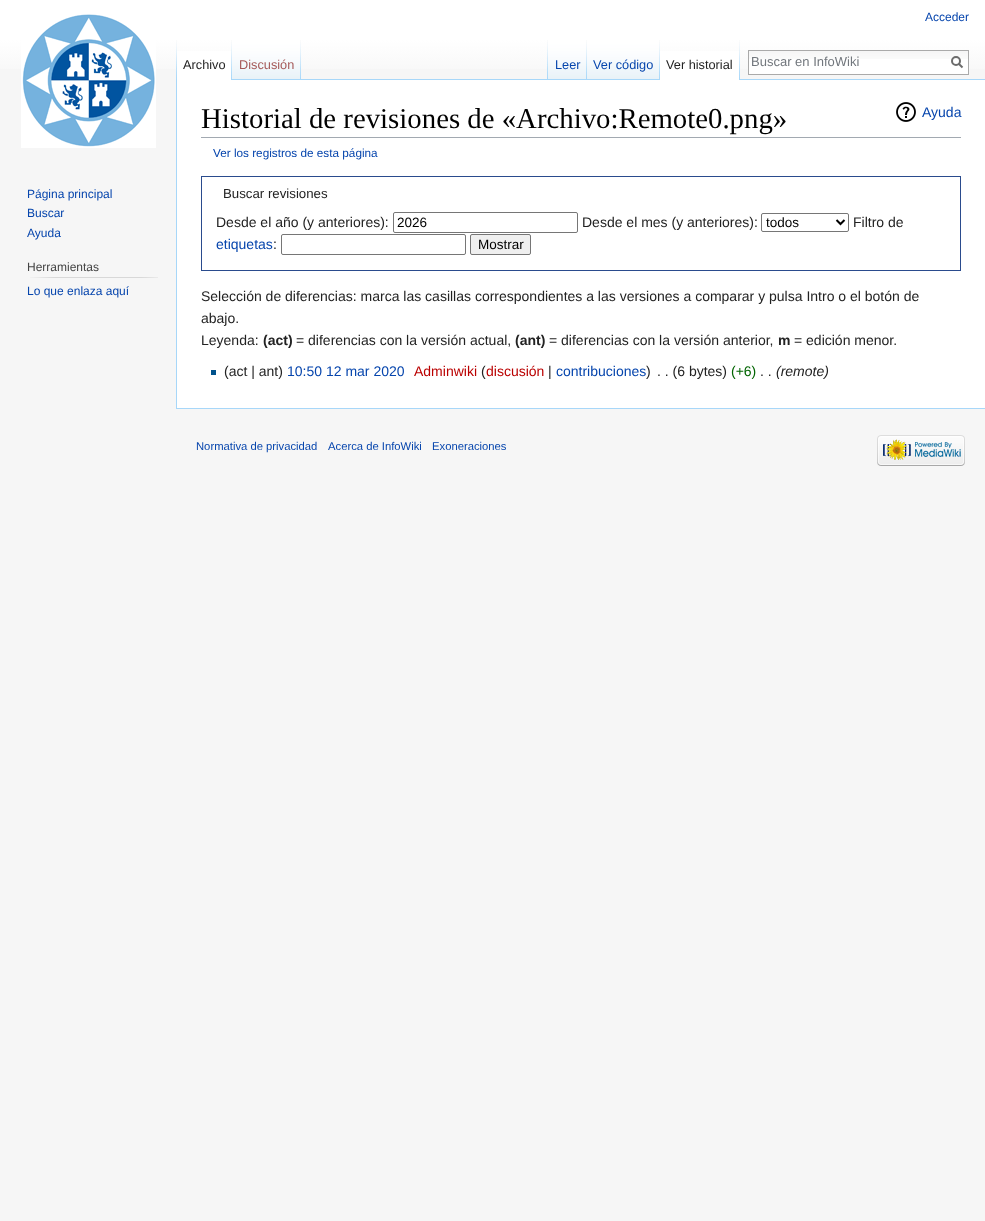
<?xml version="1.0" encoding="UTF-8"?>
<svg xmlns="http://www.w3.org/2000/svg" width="985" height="1221">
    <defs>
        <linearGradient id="g1" gradientUnits="userSpaceOnUse" x1="493" y1="0" x2="493" y2="80"><stop offset="0.5" stop-color="#FFFFFF"/><stop offset="1" stop-color="#F6F6F6"/></linearGradient>
    </defs>
    <rect width="100%" height="100%" fill="#F6F6F6"/>
    <rect x="0" y="0" width="985" height="69" fill="url(#g1)"/>
    <text x="925" y="21" font-family="Liberation Sans" font-size="12" fill="#0645AD">Acceder</text>
    <image x="176" y="40" width="1" height="39" href="img_01.png"/>
    <rect x="177" y="51" width="54" height="29" fill="#FFFFFF"/>
    <image x="231" y="40" width="1" height="40" href="img_02.png"/>
    <text x="183" y="69" font-family="Liberation Sans" font-size="12.75" fill="#222222">Archivo</text>
    <image x="232" y="40" width="69" height="40" href="img_03.png"/>
    <image x="300" y="40" width="1" height="39" href="img_01.png"/>
    <text x="239" y="69" font-family="Liberation Sans" font-size="12.75" fill="#A55858">Discusión</text>
    <image x="547" y="40" width="1" height="39" href="img_01.png"/>
    <rect x="301" y="79" width="684" height="1" fill="#A7D7F9"/>
    <image x="548" y="40" width="39" height="40" href="img_04.png"/>
    <image x="586" y="40" width="1" height="39" href="img_01.png"/>
    <text x="555" y="69" font-family="Liberation Sans" font-size="12.75" fill="#0645AD">Leer</text>
    <image x="587" y="40" width="73" height="40" href="img_05.png"/>
    <image x="659" y="40" width="1" height="39" href="img_01.png"/>
    <text x="593" y="69" font-family="Liberation Sans" font-size="12.75" fill="#0645AD">Ver código</text>
    <rect x="660" y="51" width="79" height="29" fill="#FFFFFF"/>
    <image x="739" y="40" width="1" height="40" href="img_02.png"/>
    <text x="666" y="69" font-family="Liberation Sans" font-size="12.75" fill="#222222">Ver historial</text>
    <rect x="749" y="59" width="219" height="15" fill="#FFFFFF"/>
    <image x="749" y="51" width="219" height="8" href="img_06.png"/>
    <rect x="748.5" y="50.5" width="220" height="24" fill="none" stroke="#AAAAAA"/>
    <text x="751" y="66" font-family="Liberation Sans" font-size="13" fill="#72777D">Buscar en InfoWiki</text>
    <path d="M 962.5 67.5 L 958.5 63.5" fill="none" stroke="#6C6C6C" stroke-width="2"/>
    <circle cx="956" cy="61" r="4" fill="none" stroke="#6C6C6C" stroke-width="2"/>
    <image x="21" y="14" width="135" height="134" href="img_07.png"/>
    <text font-family="Liberation Sans" font-size="12" fill="#0645AD">
        <tspan x="27" y="198">Página principal</tspan>
        <tspan x="27" y="217">Buscar</tspan>
        <tspan x="27" y="237">Ayuda</tspan>
    </text>
    <text x="27" y="271" font-family="Liberation Sans" font-size="12" fill="#444444">Herramientas</text>
    <image x="30" y="277" width="128" height="1" href="img_08.png"/>
    <text x="27" y="295" font-family="Liberation Sans" font-size="12" fill="#0645AD">Lo que enlaza aquí</text>
    <rect x="177" y="80" width="808" height="328" fill="#FFFFFF"/>
    <rect x="176" y="408" width="809" height="1" fill="#A7D7F9"/>
    <rect x="176" y="79" width="1" height="330" fill="#A7D7F9"/>
    <rect x="201" y="137" width="760" height="1" fill="#A2A9B1"/>
    <text x="201" y="128" font-family="Liberation Serif" font-size="28.8" fill="#000000">Historial de revisiones de «Archivo:Remote0.png»</text>
    <image x="896" y="102" width="20" height="20" href="img_09.png"/>
    <text x="922" y="117" font-family="Liberation Sans" font-size="14" fill="#0645AD">Ayuda</text>
    <text x="213" y="157" font-family="Liberation Sans" font-size="11.75" fill="#0645AD">Ver los registros de esta página</text>
    <rect x="201.5" y="176.5" width="759" height="94" fill="none" stroke="#2A4B8D"/>
    <text x="223" y="198" font-family="Liberation Sans" font-size="13.25" fill="#222222">Buscar revisiones</text>
    <text x="216" y="227" font-family="Liberation Sans" font-size="14" fill="#222222">Desde el año (y anteriores):</text>
    <rect x="393.5" y="212.5" width="184" height="20" rx="1.5" fill="none" stroke="#767676"/>
    <text x="397" y="227" font-family="Liberation Sans" font-size="13.5" fill="#000000">2026</text>
    <text x="582" y="227" font-family="Liberation Sans" font-size="14" fill="#222222">Desde el mes (y anteriores):</text>
    <rect x="761.5" y="213.5" width="87" height="18" rx="1.5" fill="none" stroke="#767676"/>
    <path d="M 836.5 220 L 840.5 224 L 844.5 220" fill="none" stroke="#000000" stroke-width="2"/>
    <text x="766" y="227" font-family="Liberation Sans" font-size="13.5" fill="#000000">todos</text>
    <text x="853" y="227" font-family="Liberation Sans" font-size="14" fill="#222222">Filtro de</text>
    <text x="216" y="249" font-family="Liberation Sans" font-size="14" fill="#0645AD">etiquetas</text>
    <text x="273" y="249" font-family="Liberation Sans" font-size="14" fill="#222222">:</text>
    <rect x="281.5" y="234.5" width="184" height="20" rx="1.5" fill="none" stroke="#767676"/>
    <rect x="470.5" y="234.5" width="60" height="20" rx="1.5" fill="#EFEFEF" stroke="#767676"/>
    <text x="478" y="249" font-family="Liberation Sans" font-size="13.5" fill="#000000">Mostrar</text>
    <text font-family="Liberation Sans" font-size="14" fill="#222222">
        <tspan x="201" y="301">Selección de diferencias: marca las casillas correspondientes a las versiones a comparar y pulsa Intro o el botón de</tspan>
        <tspan x="201" y="323">abajo.</tspan>
        <tspan x="201" y="345">Leyenda:</tspan>
    </text>
    <text x="263" y="345" font-family="Liberation Sans" font-size="14" font-weight="700" fill="#222222">(act)</text>
    <text x="296" y="345" font-family="Liberation Sans" font-size="14" fill="#222222">= diferencias con la versión actual,</text>
    <text x="515" y="345" font-family="Liberation Sans" font-size="14" font-weight="700" fill="#222222">(ant)</text>
    <text x="549" y="345" font-family="Liberation Sans" font-size="14" fill="#222222">= diferencias con la versión anterior,</text>
    <text x="778" y="345" font-family="Liberation Sans" font-size="14" font-weight="700" fill="#222222">m</text>
    <text x="794" y="345" font-family="Liberation Sans" font-size="14" fill="#222222">= edición menor.</text>
    <rect x="211" y="370" width="5" height="5" fill="#00528C"/>
    <text x="224" y="376" font-family="Liberation Sans" font-size="14" fill="#222222">(act | ant)</text>
    <text x="287" y="376" font-family="Liberation Sans" font-size="14" fill="#0645AD">10:50 12 mar 2020</text>
    <text x="414" y="376" font-family="Liberation Sans" font-size="14" fill="#BA0000">Adminwiki</text>
    <text x="481" y="376" font-family="Liberation Sans" font-size="14" fill="#222222">(</text>
    <text x="486" y="376" font-family="Liberation Sans" font-size="14" fill="#BA0000">discusión</text>
    <text x="548" y="376" font-family="Liberation Sans" font-size="14" fill="#222222">|</text>
    <text x="556" y="376" font-family="Liberation Sans" font-size="14" fill="#0645AD">contribuciones</text>
    <text x="646" y="376" font-family="Liberation Sans" font-size="14" fill="#222222">)</text>
    <text x="657" y="376" font-family="Liberation Sans" font-size="14" fill="#222222">. . (6 bytes)</text>
    <text x="731" y="376" font-family="Liberation Sans" font-size="14" fill="#006400">(+6)</text>
    <text x="760" y="376" font-family="Liberation Sans" font-size="14" fill="#222222">. .</text>
    <text x="776" y="376" font-family="Liberation Sans" font-size="14" font-style="italic" fill="#222222">(remote)</text>
    <text x="196" y="450" font-family="Liberation Sans" font-size="11.25" fill="#0645AD">Normativa de privacidad</text>
    <text x="328" y="450" font-family="Liberation Sans" font-size="11.25" fill="#0645AD">Acerca de InfoWiki</text>
    <text x="432" y="450" font-family="Liberation Sans" font-size="11.25" fill="#0645AD">Exoneraciones</text>
    <image x="877" y="435" width="88" height="31" href="img_10.png"/>
</svg>
